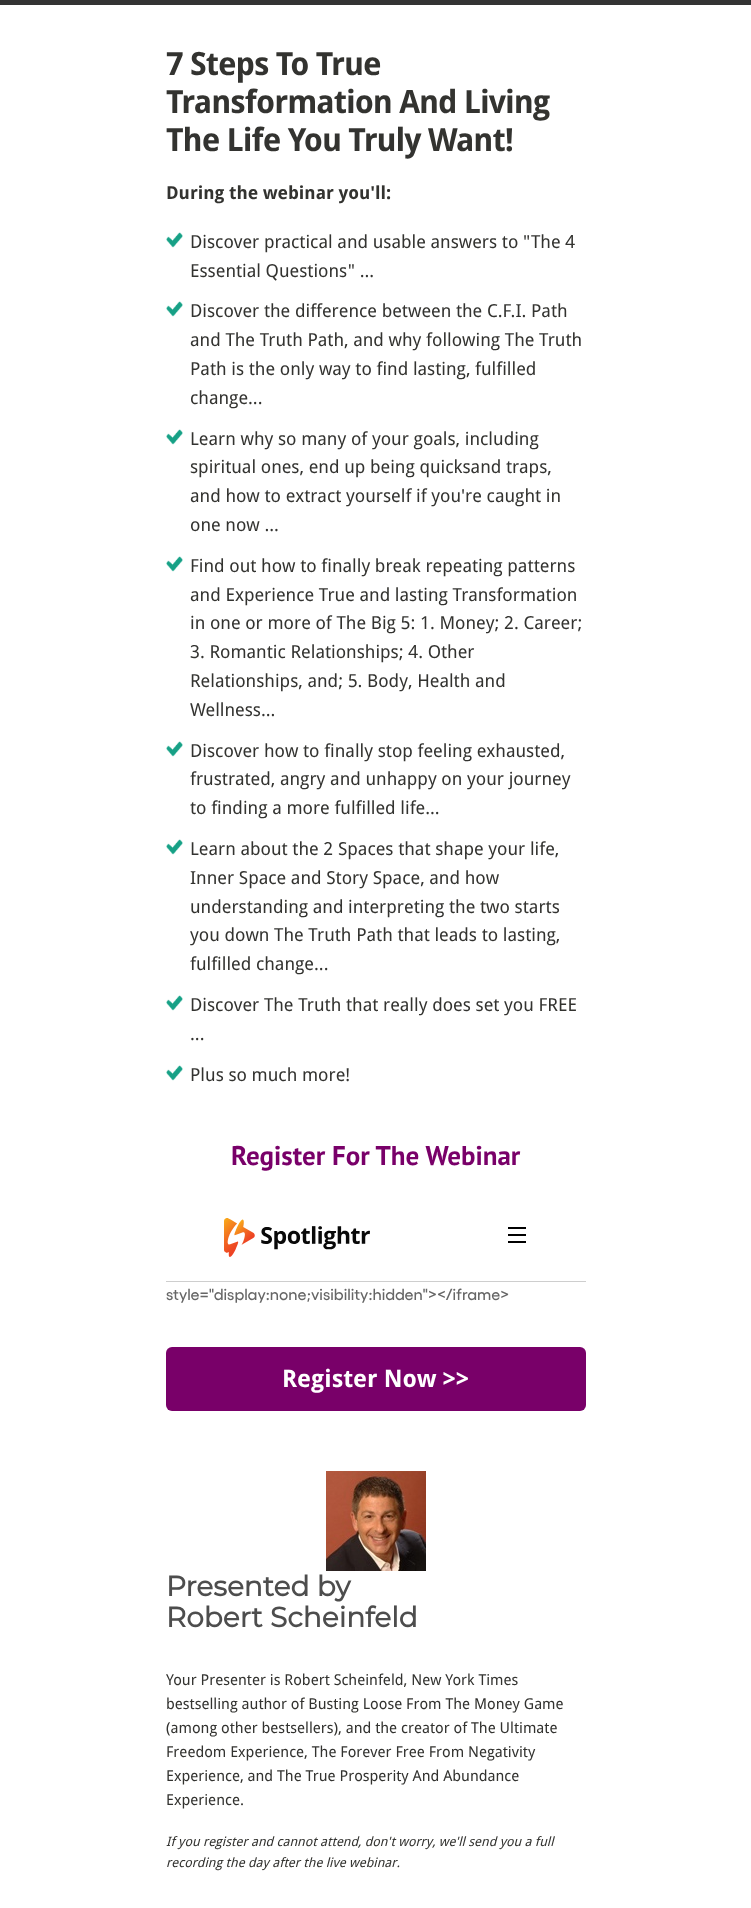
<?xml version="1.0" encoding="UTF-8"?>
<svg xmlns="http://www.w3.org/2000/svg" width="751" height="1908">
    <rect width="100%" height="100%" fill="#FFFFFF"/>
    <rect x="0" y="0" width="751" height="5" fill="#333333"/>
    <text font-family="Droid Sans" font-size="32" font-weight="700" letter-spacing="-1" fill="#333330">
        <tspan x="166" y="75">7 Steps To True</tspan>
        <tspan x="166" y="113">Transformation And Living</tspan>
        <tspan x="166" y="151">The Life You Truly Want!</tspan>
    </text>
    <text x="166" y="199" font-family="Droid Sans" font-size="18" font-weight="700" fill="#333330">During the webinar you'll:</text>
    <image x="166" y="232" width="17" height="16" href="img_01.png"/>
    <text font-family="Droid Sans" font-size="18" fill="#333330">
        <tspan x="190" y="248">Discover practical and usable answers to "The 4</tspan>
        <tspan x="190" y="277">Essential Questions" ...</tspan>
    </text>
    <image x="166" y="301" width="17" height="16" href="img_01.png"/>
    <text font-family="Droid Sans" font-size="18" fill="#333330">
        <tspan x="190" y="317">Discover the difference between the C.F.I. Path</tspan>
        <tspan x="190" y="346">and The Truth Path, and why following The Truth</tspan>
        <tspan x="190" y="375">Path is the only way to find lasting, fulfilled</tspan>
        <tspan x="190" y="404">change...</tspan>
    </text>
    <image x="166" y="429" width="17" height="16" href="img_01.png"/>
    <text font-family="Droid Sans" font-size="18" fill="#333330">
        <tspan x="190" y="445">Learn why so many of your goals, including</tspan>
        <tspan x="190" y="473">spiritual ones, end up being quicksand traps,</tspan>
        <tspan x="190" y="502">and how to extract yourself if you're caught in</tspan>
        <tspan x="190" y="531">one now ...</tspan>
    </text>
    <image x="166" y="556" width="17" height="16" href="img_01.png"/>
    <text font-family="Droid Sans" font-size="18" fill="#333330">
        <tspan x="190" y="572">Find out how to finally break repeating patterns</tspan>
        <tspan x="190" y="601">and Experience True and lasting Transformation</tspan>
        <tspan x="190" y="629">in one or more of The Big 5: 1. Money; 2. Career;</tspan>
        <tspan x="190" y="658">3. Romantic Relationships; 4. Other</tspan>
        <tspan x="190" y="687">Relationships, and; 5. Body, Health and</tspan>
        <tspan x="190" y="716">Wellness...</tspan>
    </text>
    <image x="166" y="741" width="17" height="16" href="img_01.png"/>
    <text font-family="Droid Sans" font-size="18" fill="#333330">
        <tspan x="190" y="757">Discover how to finally stop feeling exhausted,</tspan>
        <tspan x="190" y="785">frustrated, angry and unhappy on your journey</tspan>
        <tspan x="190" y="814">to finding a more fulfilled life...</tspan>
    </text>
    <image x="166" y="839" width="17" height="16" href="img_01.png"/>
    <text font-family="Droid Sans" font-size="18" fill="#333330">
        <tspan x="190" y="855">Learn about the 2 Spaces that shape your life,</tspan>
        <tspan x="190" y="884">Inner Space and Story Space, and how</tspan>
        <tspan x="190" y="913">understanding and interpreting the two starts</tspan>
        <tspan x="190" y="941">you down The Truth Path that leads to lasting,</tspan>
        <tspan x="190" y="970">fulfilled change...</tspan>
    </text>
    <image x="166" y="995" width="17" height="16" href="img_01.png"/>
    <text font-family="Droid Sans" font-size="18" fill="#333330">
        <tspan x="190" y="1011">Discover The Truth that really does set you FREE</tspan>
        <tspan x="190" y="1040">...</tspan>
    </text>
    <image x="166" y="1065" width="17" height="16" href="img_01.png"/>
    <text x="190" y="1081" font-family="Droid Sans" font-size="18" fill="#333330">Plus so much more!</text>
    <text x="231" y="1165" font-family="PT Sans" font-size="27" font-weight="700" fill="#790069">Register For The Webinar</text>
    <image x="166" y="1218" width="420" height="85" href="img_02.png"/>
    <rect x="166" y="1347" width="420" height="64" rx="6" fill="#790069"/>
    <text x="282" y="1387" font-family="Droid Sans" font-size="24" font-weight="700" fill="#FFFFFF">Register Now &gt;&gt;</text>
    <image x="326" y="1471" width="100" height="100" href="img_03.png"/>
    <text font-family="Montserrat" font-size="28" font-weight="700" fill="#4D4D4D">
        <tspan x="166" y="1596">Presented by</tspan>
        <tspan x="166" y="1627">Robert Scheinfeld</tspan>
    </text>
    <text font-family="Droid Sans" font-size="15" fill="#333330">
        <tspan x="166" y="1685">Your Presenter is Robert Scheinfeld, New York Times</tspan>
        <tspan x="166" y="1709">bestselling author of Busting Loose From The Money Game</tspan>
        <tspan x="166" y="1733">(among other bestsellers), and the creator of The Ultimate</tspan>
        <tspan x="166" y="1757">Freedom Experience, The Forever Free From Negativity</tspan>
        <tspan x="166" y="1781">Experience, and The True Prosperity And Abundance</tspan>
        <tspan x="166" y="1805">Experience.</tspan>
    </text>
    <text font-family="Droid Sans" font-size="13" font-style="italic" fill="#333330">
        <tspan x="166" y="1846">If you register and cannot attend, don't worry, we'll send you a full</tspan>
        <tspan x="166" y="1867">recording the day after the live webinar.</tspan>
    </text>
</svg>
